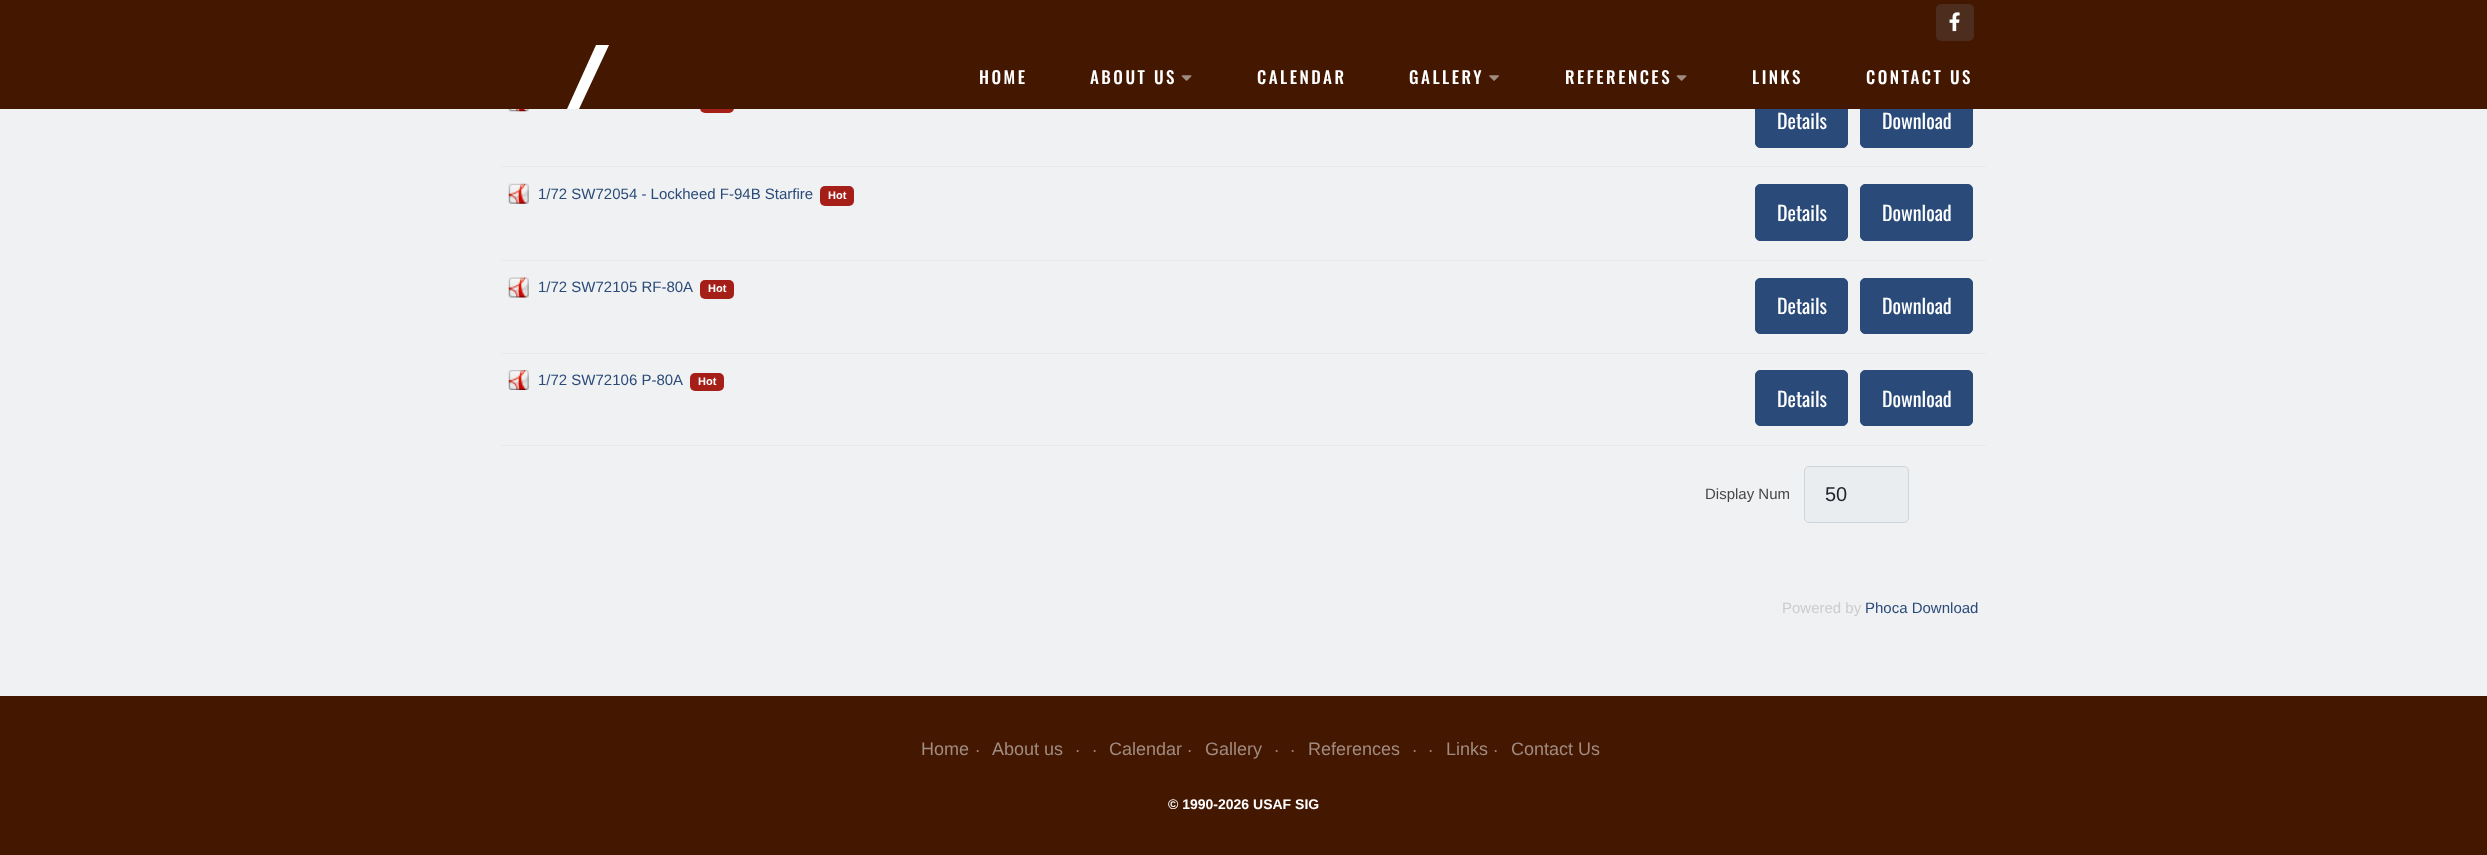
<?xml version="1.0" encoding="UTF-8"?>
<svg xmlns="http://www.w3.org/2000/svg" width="2487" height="855">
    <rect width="100%" height="100%" fill="#431700"/>
    <rect x="0" y="109" width="2487" height="587" fill="#F0F1F2"/>
    <rect x="700" y="94" width="34" height="19" rx="5" fill="#A51F18"/>
    <rect x="1755.5" y="91.5" width="92" height="56" rx="4.5" fill="#2A4B79" stroke="#2A4B79"/>
    <rect x="1860.5" y="91.5" width="112" height="56" rx="4.5" fill="#2A4B79" stroke="#2A4B79"/>
    <rect x="700" y="91" width="1273" height="18" fill="#431700"/>
    <rect x="1936" y="4" width="38" height="37" rx="5" fill="#4D2E1E"/>
    <image x="1949" y="12" width="11" height="20" href="img_01.png"/>
    <path d="M 596 45 H 609 L 579 109 H 567 Z" fill="#FFFFFF"/>
    <text x="979" y="84" font-family="Oswald" font-size="17" font-weight="500" letter-spacing="2.5" fill="#FFFFFF">HOME</text>
    <text x="1090" y="84" font-family="Oswald" font-size="17" font-weight="500" letter-spacing="2.5" fill="#FFFFFF">ABOUT US</text>
    <image x="1181" y="75" width="11" height="6" href="img_02.png"/>
    <text x="1257" y="84" font-family="Oswald" font-size="17" font-weight="500" letter-spacing="2.5" fill="#FFFFFF">CALENDAR</text>
    <text x="1409" y="84" font-family="Oswald" font-size="17" font-weight="500" letter-spacing="2.5" fill="#FFFFFF">GALLERY</text>
    <image x="1489" y="75" width="10" height="6" href="img_03.png"/>
    <text x="1565" y="84" font-family="Oswald" font-size="17" font-weight="500" letter-spacing="2.5" fill="#FFFFFF">REFERENCES</text>
    <image x="1676" y="75" width="11" height="6" href="img_02.png"/>
    <text x="1752" y="84" font-family="Oswald" font-size="17" font-weight="500" letter-spacing="2.5" fill="#FFFFFF">LINKS</text>
    <text x="1866" y="84" font-family="Oswald" font-size="17" font-weight="500" letter-spacing="2.5" fill="#FFFFFF">CONTACT US</text>
    <image x="508" y="109" width="21" height="3" href="img_04.png"/>
    <text x="1777" y="129" font-family="Oswald" font-size="20" fill="#FFFFFF">Details</text>
    <text x="1882" y="129" font-family="Oswald" font-size="20" fill="#FFFFFF">Download</text>
    <rect x="501" y="166" width="1485" height="1" fill="#E9E9E9"/>
    <image x="508" y="183" width="21" height="21" href="img_05.png"/>
    <text x="538" y="199" font-family="Liberation Sans" font-size="15" fill="#2A4B79">1/72 SW72054 - Lockheed F-94B Starfire</text>
    <rect x="820" y="186" width="34" height="20" rx="5" fill="#A51F18"/>
    <text x="828" y="199" font-family="Liberation Sans" font-size="11" font-weight="700" fill="#FFFFFF">Hot</text>
    <rect x="1755.5" y="184.5" width="92" height="56" rx="4.5" fill="#2A4B79" stroke="#2A4B79"/>
    <text x="1777" y="221" font-family="Oswald" font-size="20" fill="#FFFFFF">Details</text>
    <rect x="1860.5" y="184.5" width="112" height="56" rx="4.5" fill="#2A4B79" stroke="#2A4B79"/>
    <text x="1882" y="221" font-family="Oswald" font-size="20" fill="#FFFFFF">Download</text>
    <rect x="501" y="260" width="1485" height="1" fill="#E9E9E9"/>
    <image x="508" y="277" width="21" height="21" href="img_06.png"/>
    <text x="538" y="292" font-family="Liberation Sans" font-size="15" fill="#2A4B79">1/72 SW72105 RF-80A</text>
    <rect x="700" y="280" width="34" height="19" rx="5" fill="#A51F18"/>
    <text x="708" y="292" font-family="Liberation Sans" font-size="11" font-weight="700" fill="#FFFFFF">Hot</text>
    <rect x="1755.5" y="278.5" width="92" height="55" rx="4.5" fill="#2A4B79" stroke="#2A4B79"/>
    <text x="1777" y="314" font-family="Oswald" font-size="20" fill="#FFFFFF">Details</text>
    <rect x="1860.5" y="278.5" width="112" height="55" rx="4.5" fill="#2A4B79" stroke="#2A4B79"/>
    <text x="1882" y="314" font-family="Oswald" font-size="20" fill="#FFFFFF">Download</text>
    <rect x="501" y="353" width="1485" height="1" fill="#E9E9E9"/>
    <image x="508" y="370" width="21" height="20" href="img_07.png"/>
    <text x="538" y="385" font-family="Liberation Sans" font-size="15" fill="#2A4B79">1/72 SW72106 P-80A</text>
    <rect x="690" y="373" width="34" height="18" rx="5" fill="#A51F18"/>
    <text x="698" y="385" font-family="Liberation Sans" font-size="11" font-weight="700" fill="#FFFFFF">Hot</text>
    <rect x="1755.5" y="370.5" width="92" height="55" rx="4.5" fill="#2A4B79" stroke="#2A4B79"/>
    <text x="1777" y="407" font-family="Oswald" font-size="20" fill="#FFFFFF">Details</text>
    <rect x="1860.5" y="370.5" width="112" height="55" rx="4.5" fill="#2A4B79" stroke="#2A4B79"/>
    <text x="1882" y="407" font-family="Oswald" font-size="20" fill="#FFFFFF">Download</text>
    <rect x="501" y="445" width="1485" height="1" fill="#E9E9E9"/>
    <text x="1705" y="499" font-family="Liberation Sans" font-size="15" fill="#474747">Display Num</text>
    <rect x="1804.5" y="466.5" width="104" height="56" rx="4.5" fill="#EAEDF0" stroke="#CED4DA"/>
    <text x="1825" y="501" font-family="Liberation Sans" font-size="20" fill="#22262A">50</text>
    <text x="1782" y="613" font-family="Liberation Sans" font-size="15" fill="#CCCCCC">Powered by</text>
    <text x="1865" y="613" font-family="Liberation Sans" font-size="15" fill="#2A4B79">Phoca Download</text>
    <text x="921" y="755" font-family="Liberation Sans" font-size="18" fill="#A18B80">Home</text>
    <text x="976" y="755" font-family="Liberation Sans" font-size="12" font-weight="700" fill="#A18B80">·</text>
    <text x="992" y="755" font-family="Liberation Sans" font-size="18" fill="#A18B80">About us</text>
    <text x="1076" y="755" font-family="Liberation Sans" font-size="12" font-weight="700" fill="#A18B80">·</text>
    <text x="1093" y="755" font-family="Liberation Sans" font-size="12" font-weight="700" fill="#A18B80">·</text>
    <text x="1109" y="755" font-family="Liberation Sans" font-size="18" fill="#A18B80">Calendar</text>
    <text x="1188" y="755" font-family="Liberation Sans" font-size="12" font-weight="700" fill="#A18B80">·</text>
    <text x="1205" y="755" font-family="Liberation Sans" font-size="18" fill="#A18B80">Gallery</text>
    <text x="1275" y="755" font-family="Liberation Sans" font-size="12" font-weight="700" fill="#A18B80">·</text>
    <text x="1291" y="755" font-family="Liberation Sans" font-size="12" font-weight="700" fill="#A18B80">·</text>
    <text x="1308" y="755" font-family="Liberation Sans" font-size="18" fill="#A18B80">References</text>
    <text x="1413" y="755" font-family="Liberation Sans" font-size="12" font-weight="700" fill="#A18B80">·</text>
    <text x="1429" y="755" font-family="Liberation Sans" font-size="12" font-weight="700" fill="#A18B80">·</text>
    <text x="1446" y="755" font-family="Liberation Sans" font-size="18" fill="#A18B80">Links</text>
    <text x="1494" y="755" font-family="Liberation Sans" font-size="12" font-weight="700" fill="#A18B80">·</text>
    <text x="1511" y="755" font-family="Liberation Sans" font-size="18" fill="#A18B80">Contact Us</text>
    <text x="1168" y="809" font-family="Liberation Sans" font-size="14" font-weight="700" fill="#FFFFFF">© 1990-2026 USAF SIG</text>
</svg>
